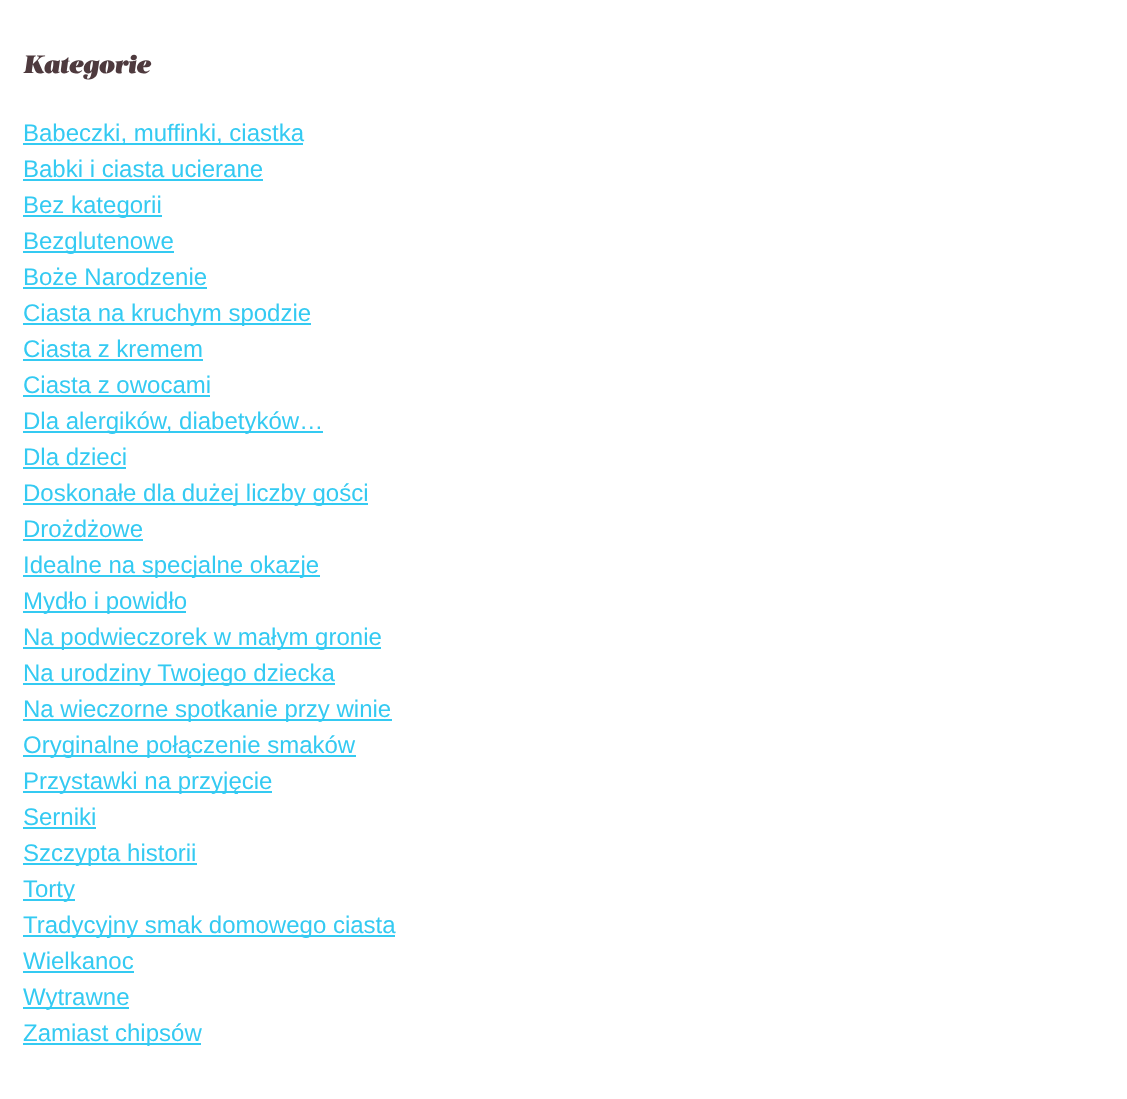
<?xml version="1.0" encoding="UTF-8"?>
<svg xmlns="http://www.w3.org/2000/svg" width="1127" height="1099">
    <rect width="100%" height="100%" fill="#FFFFFF"/>
    <text x="23" y="73" font-family="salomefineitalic" font-size="24" font-weight="700" font-style="italic" fill="#4E3A3E">Kategorie</text>
    <rect x="23" y="143" width="280" height="2" fill="#34CAF2"/>
    <text font-family="Liberation Sans" font-size="24" fill="#34CAF2">
        <tspan x="23" y="141">Babeczki, muffinki, ciastka</tspan>
        <tspan x="23" y="177">Babki i ciasta ucierane</tspan>
    </text>
    <rect x="23" y="179" width="240" height="2" fill="#34CAF2"/>
    <rect x="23" y="215" width="139" height="2" fill="#34CAF2"/>
    <text x="23" y="213" font-family="Liberation Sans" font-size="24" fill="#34CAF2">Bez kategorii</text>
    <rect x="23" y="251" width="151" height="2" fill="#34CAF2"/>
    <text font-family="Liberation Sans" font-size="24" fill="#34CAF2">
        <tspan x="23" y="249">Bezglutenowe</tspan>
        <tspan x="23" y="285">Boże Narodzenie</tspan>
    </text>
    <rect x="23" y="287" width="184" height="2" fill="#34CAF2"/>
    <rect x="23" y="323" width="288" height="2" fill="#34CAF2"/>
    <text font-family="Liberation Sans" font-size="24" fill="#34CAF2">
        <tspan x="23" y="321">Ciasta na kruchym spodzie</tspan>
        <tspan x="23" y="357">Ciasta z kremem</tspan>
    </text>
    <rect x="23" y="359" width="180" height="2" fill="#34CAF2"/>
    <text x="23" y="393" font-family="Liberation Sans" font-size="24" fill="#34CAF2">Ciasta z owocami</text>
    <rect x="23" y="395" width="187" height="2" fill="#34CAF2"/>
    <rect x="23" y="431" width="300" height="2" fill="#34CAF2"/>
    <text font-family="Liberation Sans" font-size="24" fill="#34CAF2">
        <tspan x="23" y="429">Dla alergików, diabetyków…</tspan>
        <tspan x="23" y="465">Dla dzieci</tspan>
    </text>
    <rect x="23" y="467" width="103" height="2" fill="#34CAF2"/>
    <rect x="23" y="503" width="345" height="2" fill="#34CAF2"/>
    <text font-family="Liberation Sans" font-size="24" fill="#34CAF2">
        <tspan x="23" y="501">Doskonałe dla dużej liczby gości</tspan>
        <tspan x="23" y="537">Drożdżowe</tspan>
    </text>
    <rect x="23" y="539" width="120" height="2" fill="#34CAF2"/>
    <rect x="23" y="575" width="297" height="2" fill="#34CAF2"/>
    <text x="23" y="573" font-family="Liberation Sans" font-size="24" fill="#34CAF2">Idealne na specjalne okazje</text>
    <rect x="23" y="611" width="163" height="2" fill="#34CAF2"/>
    <text x="23" y="609" font-family="Liberation Sans" font-size="24" fill="#34CAF2">Mydło i powidło</text>
    <rect x="23" y="647" width="358" height="2" fill="#34CAF2"/>
    <text x="23" y="645" font-family="Liberation Sans" font-size="24" fill="#34CAF2">Na podwieczorek w małym gronie</text>
    <rect x="23" y="683" width="312" height="2" fill="#34CAF2"/>
    <text x="23" y="681" font-family="Liberation Sans" font-size="24" fill="#34CAF2">Na urodziny Twojego dziecka</text>
    <rect x="23" y="719" width="369" height="2" fill="#34CAF2"/>
    <text x="23" y="717" font-family="Liberation Sans" font-size="24" fill="#34CAF2">Na wieczorne spotkanie przy winie</text>
    <rect x="23" y="755" width="333" height="2" fill="#34CAF2"/>
    <text x="23" y="753" font-family="Liberation Sans" font-size="24" fill="#34CAF2">Oryginalne połączenie smaków</text>
    <rect x="23" y="791" width="249" height="2" fill="#34CAF2"/>
    <text font-family="Liberation Sans" font-size="24" fill="#34CAF2">
        <tspan x="23" y="789">Przystawki na przyjęcie</tspan>
        <tspan x="23" y="825">Serniki</tspan>
    </text>
    <rect x="23" y="827" width="73" height="2" fill="#34CAF2"/>
    <rect x="23" y="863" width="174" height="2" fill="#34CAF2"/>
    <text x="23" y="861" font-family="Liberation Sans" font-size="24" fill="#34CAF2">Szczypta historii</text>
    <rect x="23" y="899" width="52" height="2" fill="#34CAF2"/>
    <text x="23" y="897" font-family="Liberation Sans" font-size="24" fill="#34CAF2">Torty</text>
    <rect x="23" y="935" width="372" height="2" fill="#34CAF2"/>
    <text font-family="Liberation Sans" font-size="24" fill="#34CAF2">
        <tspan x="23" y="933">Tradycyjny smak domowego ciasta</tspan>
        <tspan x="23" y="969">Wielkanoc</tspan>
    </text>
    <rect x="23" y="971" width="111" height="2" fill="#34CAF2"/>
    <rect x="23" y="1007" width="106" height="2" fill="#34CAF2"/>
    <text x="23" y="1005" font-family="Liberation Sans" font-size="24" fill="#34CAF2">Wytrawne</text>
    <rect x="23" y="1043" width="178" height="2" fill="#34CAF2"/>
    <text x="23" y="1041" font-family="Liberation Sans" font-size="24" fill="#34CAF2">Zamiast chipsów</text>
</svg>
